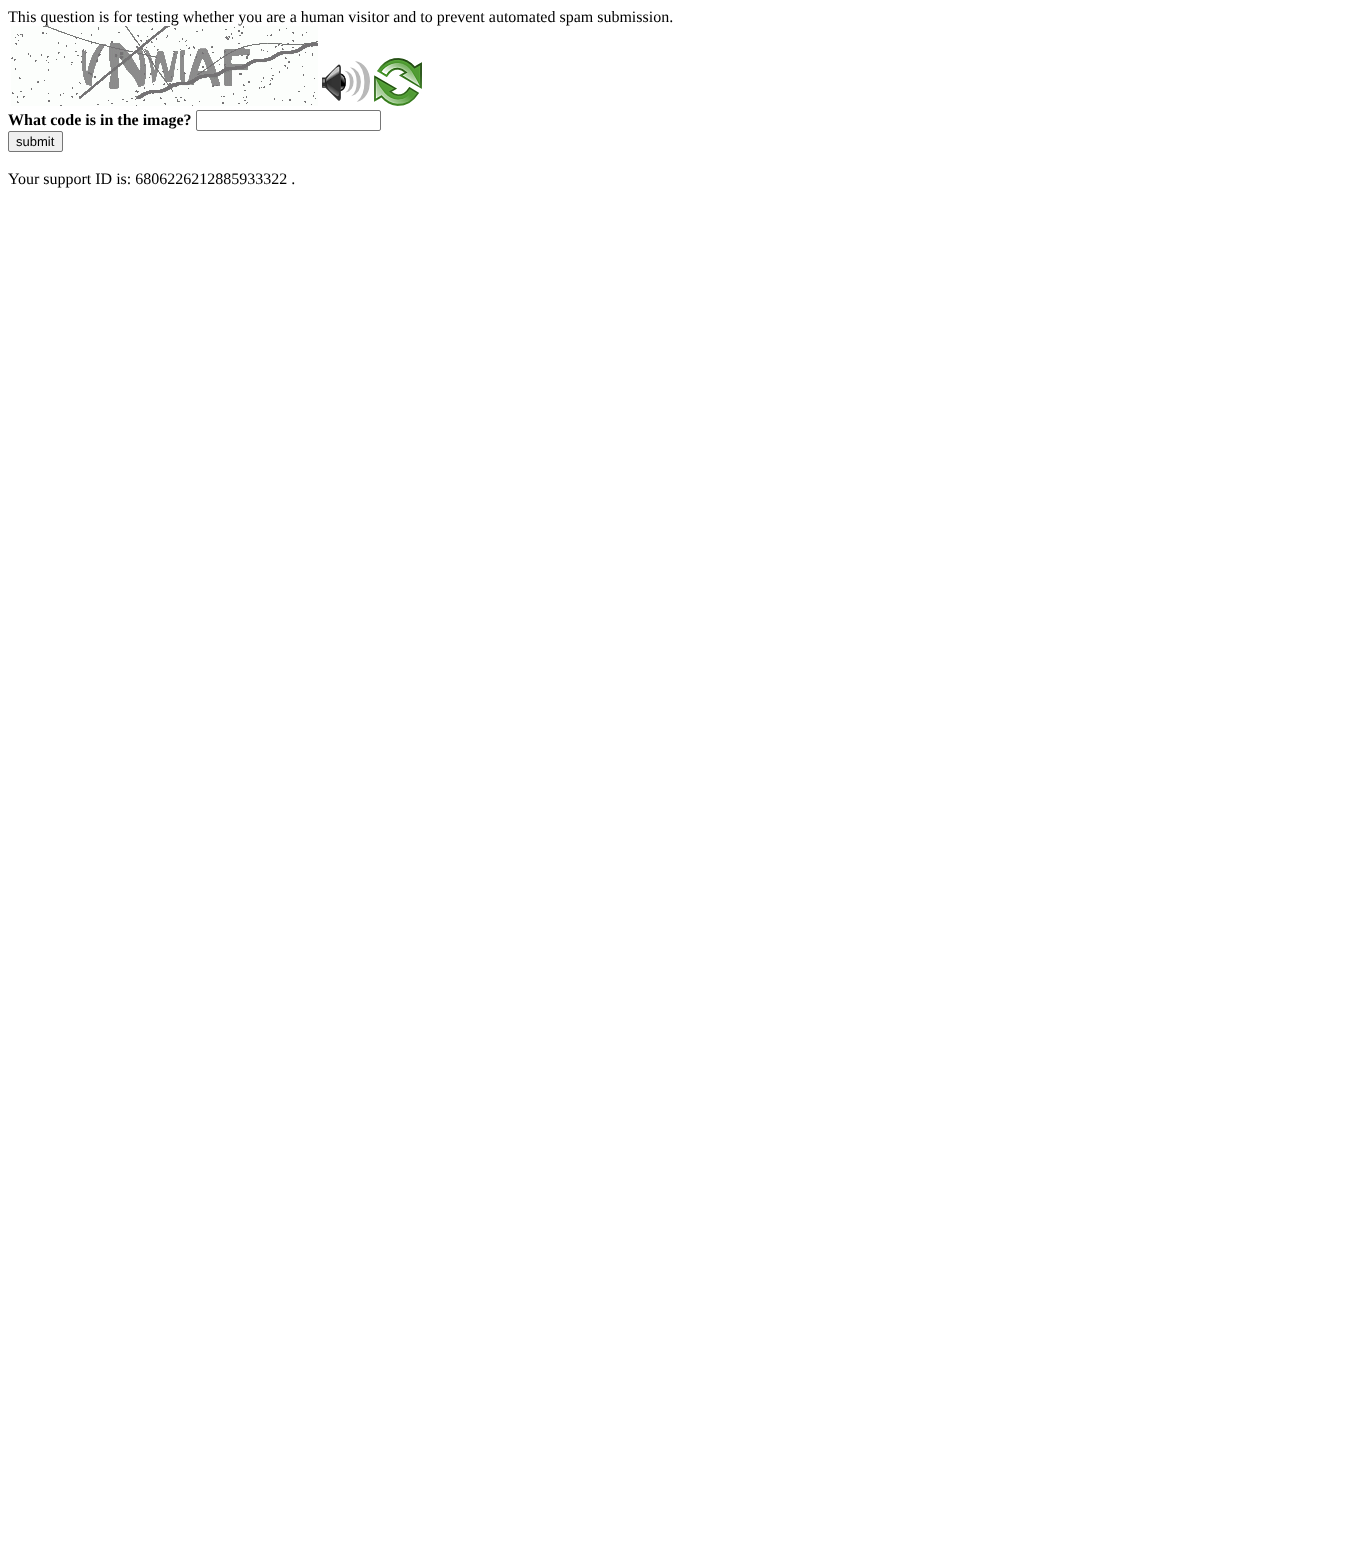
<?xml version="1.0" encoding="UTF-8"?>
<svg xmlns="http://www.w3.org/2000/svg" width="1356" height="1550">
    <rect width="100%" height="100%" fill="#FFFFFF"/>
    <text x="8" y="22" font-family="Liberation Serif" font-size="16" fill="#000000">This question is for testing whether you are a human visitor and to prevent automated spam submission.</text>
    <image x="11" y="26" width="307" height="80" href="img_01.png"/>
    <image x="322" y="61" width="48" height="41" href="img_02.png"/>
    <image x="374" y="58" width="48" height="48" href="img_03.png"/>
    <text x="8" y="125" font-family="Liberation Serif" font-size="16" font-weight="700" fill="#000000">What code is in the image?</text>
    <rect x="196.5" y="110.5" width="184" height="20" rx="1.5" fill="none" stroke="#767676"/>
    <rect x="8.5" y="131.5" width="54" height="20" rx="1.5" fill="#EFEFEF" stroke="#767676"/>
    <text x="16" y="146" font-family="Liberation Sans" font-size="13" fill="#000000">submit</text>
    <text x="8" y="184" font-family="Liberation Serif" font-size="16" fill="#000000">Your support ID is: 6806226212885933322 .</text>
</svg>
